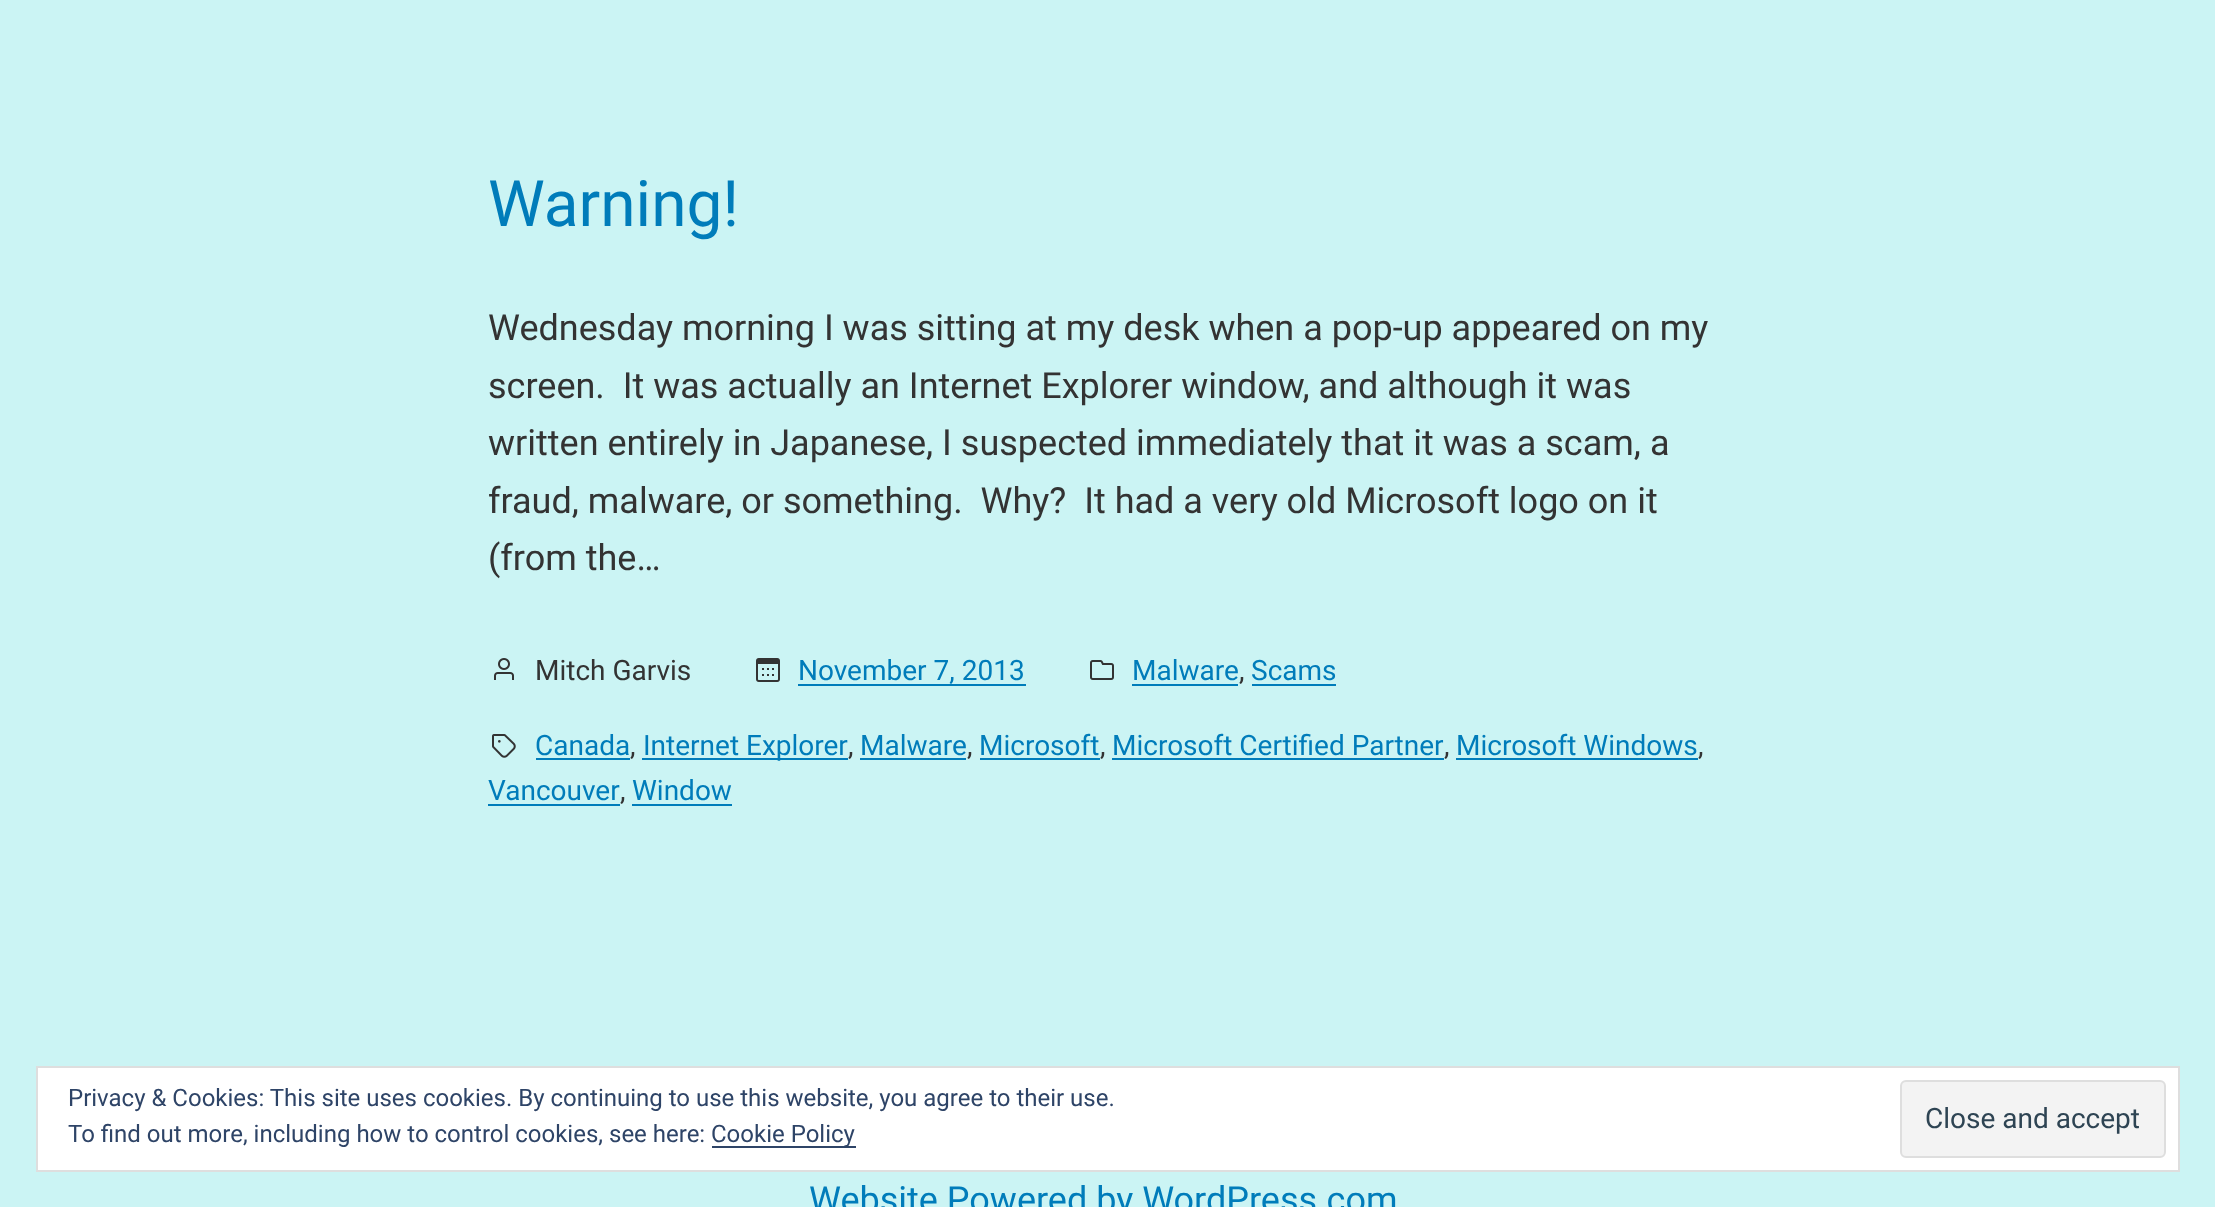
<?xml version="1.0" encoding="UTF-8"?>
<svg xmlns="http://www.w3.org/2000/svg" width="2215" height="1207">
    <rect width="100%" height="100%" fill="#CBF4F4"/>
    <text x="488" y="226" font-family="Roboto" font-size="64" fill="#007CBA">Warning!</text>
    <text font-family="Roboto" font-size="36" fill="#333333" xml:space="preserve"><tspan x="488" y="340">Wednesday morning I was sitting at my desk when a pop-up appeared on my</tspan><tspan x="488" y="398">screen.  It was actually an Internet Explorer window, and although it was</tspan><tspan x="488" y="455">written entirely in Japanese, I suspected immediately that it was a scam, a</tspan><tspan x="488" y="513">fraud, malware, or something.  Why?  It had a very old Microsoft logo on it</tspan><tspan x="488" y="570">(from the…</tspan></text>
    <image x="494" y="658" width="20" height="22" href="img_01.png"/>
    <text x="535" y="680" font-family="Roboto" font-size="28" fill="#333333">Mitch Garvis</text>
    <image x="756" y="658" width="24" height="24" href="img_02.png"/>
    <text x="798" y="680" font-family="Roboto" font-size="28" fill="#007CBA">November 7, 2013</text>
    <rect x="798" y="684" width="228" height="2" fill="#007CBA"/>
    <image x="1090" y="660" width="24" height="20" href="img_03.png"/>
    <text x="1132" y="680" font-family="Roboto" font-size="28" fill="#007CBA">Malware</text>
    <rect x="1132" y="684" width="106" height="2" fill="#007CBA"/>
    <text x="1239" y="680" font-family="Roboto" font-size="28" fill="#333333">,</text>
    <text x="1251" y="680" font-family="Roboto" font-size="28" fill="#007CBA">Scams</text>
    <rect x="1252" y="684" width="84" height="2" fill="#007CBA"/>
    <image x="492" y="734" width="24" height="24" href="img_04.png"/>
    <text x="535" y="755" font-family="Roboto" font-size="28" fill="#007CBA">Canada</text>
    <rect x="536" y="758" width="94" height="2" fill="#007CBA"/>
    <text x="630" y="755" font-family="Roboto" font-size="28" fill="#333333">,</text>
    <rect x="642" y="758" width="206" height="2" fill="#007CBA"/>
    <text x="643" y="755" font-family="Roboto" font-size="28" fill="#007CBA">Internet Explorer</text>
    <text x="848" y="755" font-family="Roboto" font-size="28" fill="#333333">,</text>
    <text x="860" y="755" font-family="Roboto" font-size="28" fill="#007CBA">Malware</text>
    <rect x="860" y="758" width="106" height="2" fill="#007CBA"/>
    <text x="967" y="755" font-family="Roboto" font-size="28" fill="#333333">,</text>
    <text x="979" y="755" font-family="Roboto" font-size="28" fill="#007CBA">Microsoft</text>
    <rect x="980" y="758" width="120" height="2" fill="#007CBA"/>
    <text x="1100" y="755" font-family="Roboto" font-size="28" fill="#333333">,</text>
    <text x="1112" y="755" font-family="Roboto" font-size="28" fill="#007CBA">Microsoft Certified Partner</text>
    <rect x="1112" y="758" width="332" height="2" fill="#007CBA"/>
    <text x="1444" y="755" font-family="Roboto" font-size="28" fill="#333333">,</text>
    <text x="1456" y="755" font-family="Roboto" font-size="28" fill="#007CBA">Microsoft Windows</text>
    <rect x="1456" y="758" width="242" height="2" fill="#007CBA"/>
    <text x="1698" y="755" font-family="Roboto" font-size="28" fill="#333333">,</text>
    <text x="488" y="800" font-family="Roboto" font-size="28" fill="#007CBA">Vancouver</text>
    <rect x="488" y="804" width="132" height="2" fill="#007CBA"/>
    <text x="620" y="800" font-family="Roboto" font-size="28" fill="#333333">,</text>
    <text x="632" y="800" font-family="Roboto" font-size="28" fill="#007CBA">Window</text>
    <rect x="632" y="804" width="100" height="2" fill="#007CBA"/>
    <text x="809" y="1212" font-family="Roboto" font-size="36" fill="#007CBA">Website Powered by WordPress.com</text>
    <rect x="37" y="1067" width="2142" height="104" fill="#FFFFFF" stroke="#DEDEDE" stroke-width="2"/>
    <text font-family="Roboto" font-size="24" fill="#2E4467">
        <tspan x="68" y="1106">Privacy &amp; Cookies: This site uses cookies. By continuing to use this website, you agree to their use.</tspan>
        <tspan x="68" y="1142">To find out more, including how to control cookies, see here:</tspan>
    </text>
    <rect x="712" y="1146" width="144" height="2" fill="#2E4467"/>
    <text x="711" y="1142" font-family="Roboto" font-size="24" fill="#2E4467">Cookie Policy</text>
    <rect x="1901" y="1081" width="264" height="76" rx="5" fill="#F3F3F3" stroke="#DEDEDE" stroke-width="2"/>
    <text x="1925" y="1128" font-family="Roboto" font-size="28" fill="#2E4453">Close and accept</text>
</svg>
